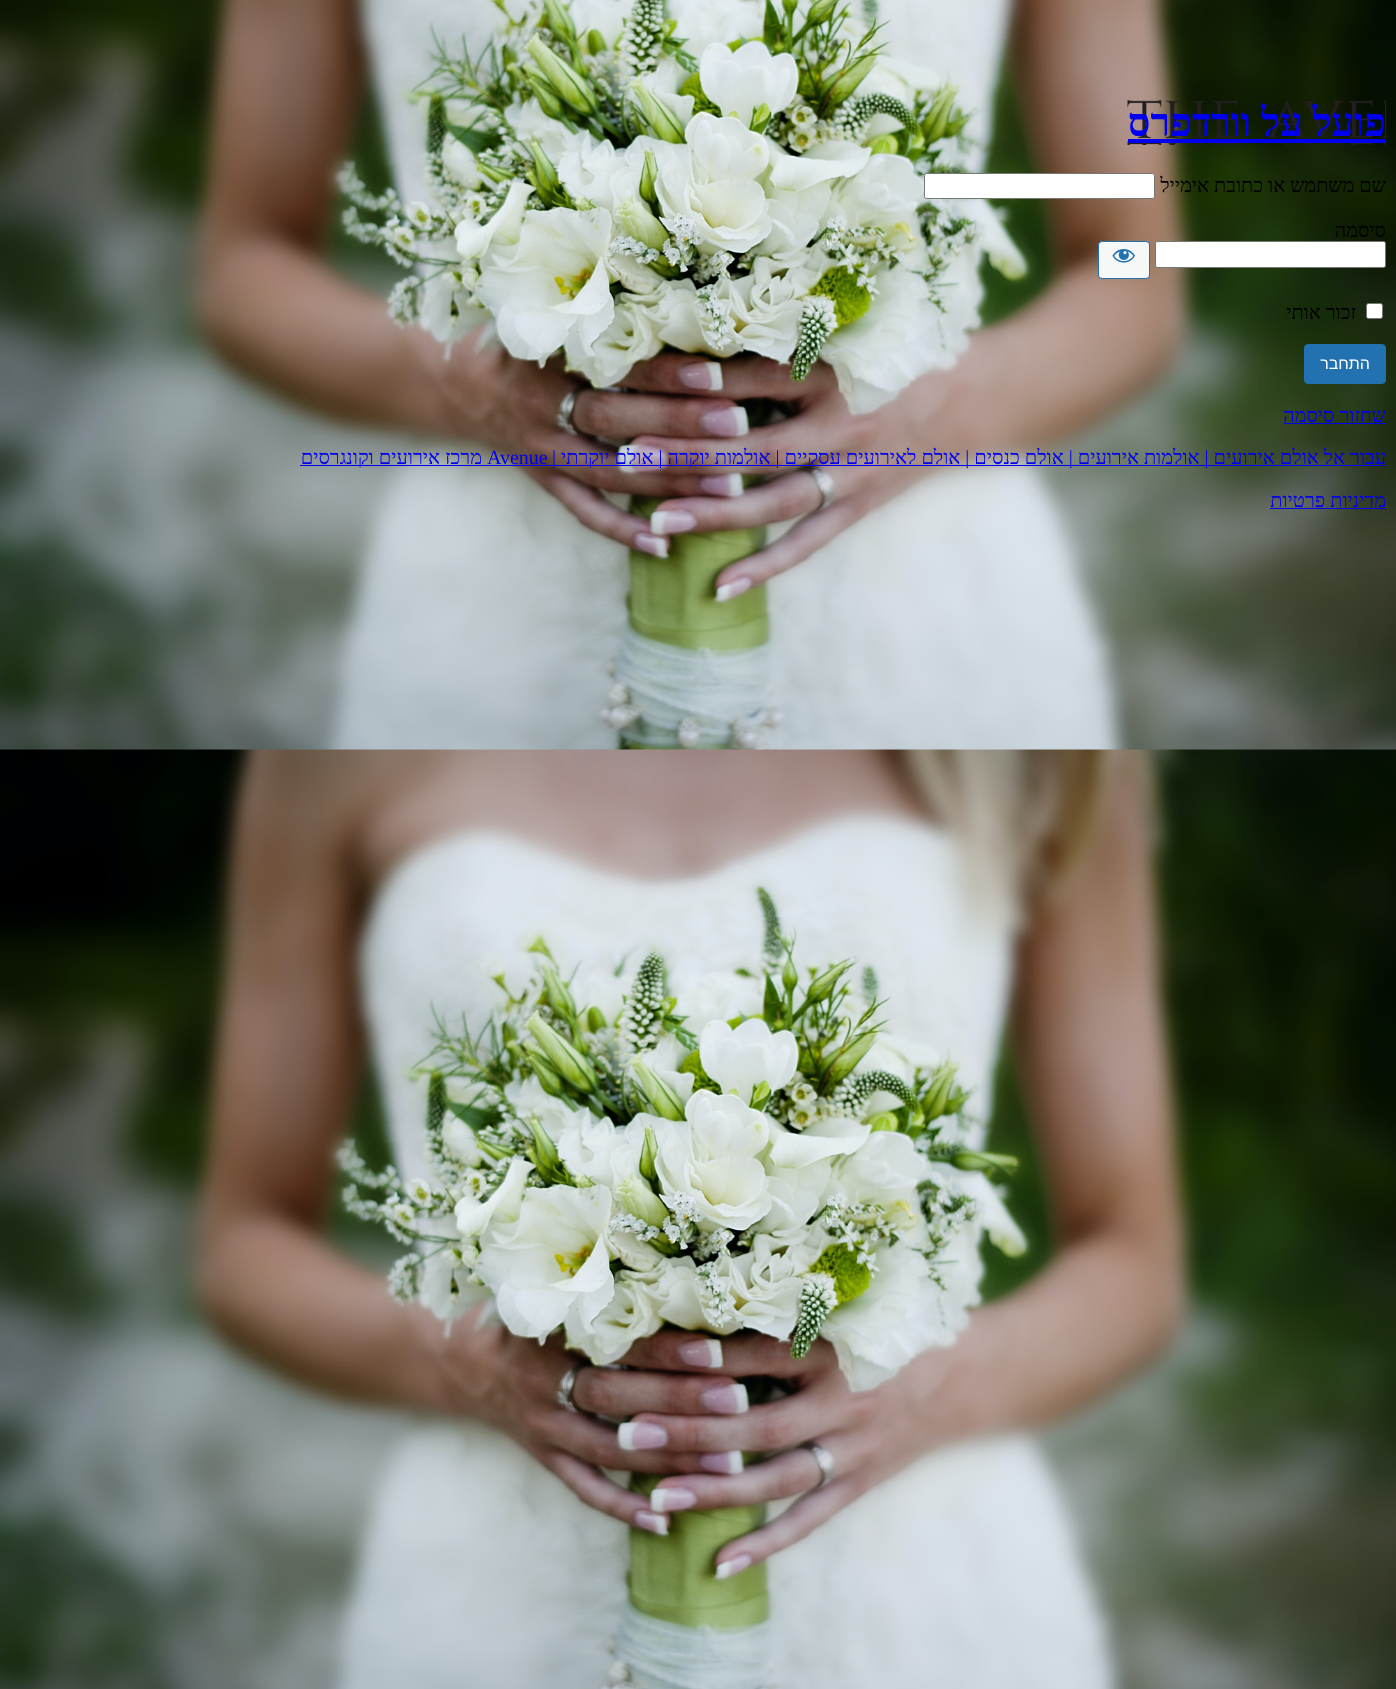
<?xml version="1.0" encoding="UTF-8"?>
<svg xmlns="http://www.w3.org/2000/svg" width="1396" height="1689">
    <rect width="100%" height="100%" fill="#FFFFFF"/>
    <image x="0" y="0" width="1396" height="1689" href="img_01.png"/>
    <image x="1127" y="100" width="260" height="45" href="img_02.png"/>
    <text x="1386" y="136" font-family="Liberation Serif" font-size="40" font-weight="700" direction="rtl" fill="#0000EE">פועל על וורדפרס</text>
    <rect x="1128" y="139" width="258" height="4" fill="#0000EE"/>
    <text x="1386" y="192" font-family="Liberation Serif" font-size="20" direction="rtl" fill="#000000">שם משתמש או כתובת אימייל</text>
    <rect x="924.5" y="173.5" width="230" height="25" rx="2" fill="#FFFFFF" stroke="#767676"/>
    <text x="1386" y="237" font-family="Liberation Serif" font-size="20" direction="rtl" fill="#000000">סיסמה</text>
    <rect x="1155.5" y="241.5" width="230" height="26" rx="2" fill="#FFFFFF" stroke="#767676"/>
    <rect x="1098.5" y="241.5" width="51" height="37" rx="3.5" fill="#F6F7F7" stroke="#2271B1"/>
    <image x="1112" y="249" width="24" height="14" href="img_03.png"/>
    <rect x="1366.5" y="303.5" width="16" height="15" rx="2" fill="#FFFFFF" stroke="#767676"/>
    <text x="1356" y="319" font-family="Liberation Serif" font-size="20" direction="rtl" fill="#000000">זכור אותי</text>
    <rect x="1304.5" y="344.5" width="81" height="39" rx="3.5" fill="#2271B1" stroke="#2271B1"/>
    <text x="1370" y="369" font-family="Liberation Sans" font-size="16" direction="rtl" fill="#FFFFFF">התחבר</text>
    <text x="1386" y="422" font-family="Liberation Serif" font-size="20" direction="rtl" fill="#0000EE">שחזור סיסמה</text>
    <rect x="1284" y="423" width="102" height="1" fill="#0000EE"/>
    <rect x="300" y="465" width="1086" height="1" fill="#0000EE"/>
    <text x="1386" y="464" font-family="Liberation Serif" font-size="20" direction="rtl" fill="#0000EE">עבור אל אולם אירועים | אולמות אירועים | אולם כנסים | אולם לאירועים עסקיים | אולמות יוקרה | אולם יוקרתי |</text>
    <text x="487" y="464" font-family="Liberation Serif" font-size="20" fill="#0000EE">Avenue</text>
    <text x="482" y="464" font-family="Liberation Serif" font-size="20" direction="rtl" fill="#0000EE">מרכז אירועים וקונגרסים</text>
    <text x="1386" y="507" font-family="Liberation Serif" font-size="20" direction="rtl" fill="#0000EE">מדיניות פרטיות</text>
    <rect x="1270" y="508" width="116" height="1" fill="#0000EE"/>
</svg>
